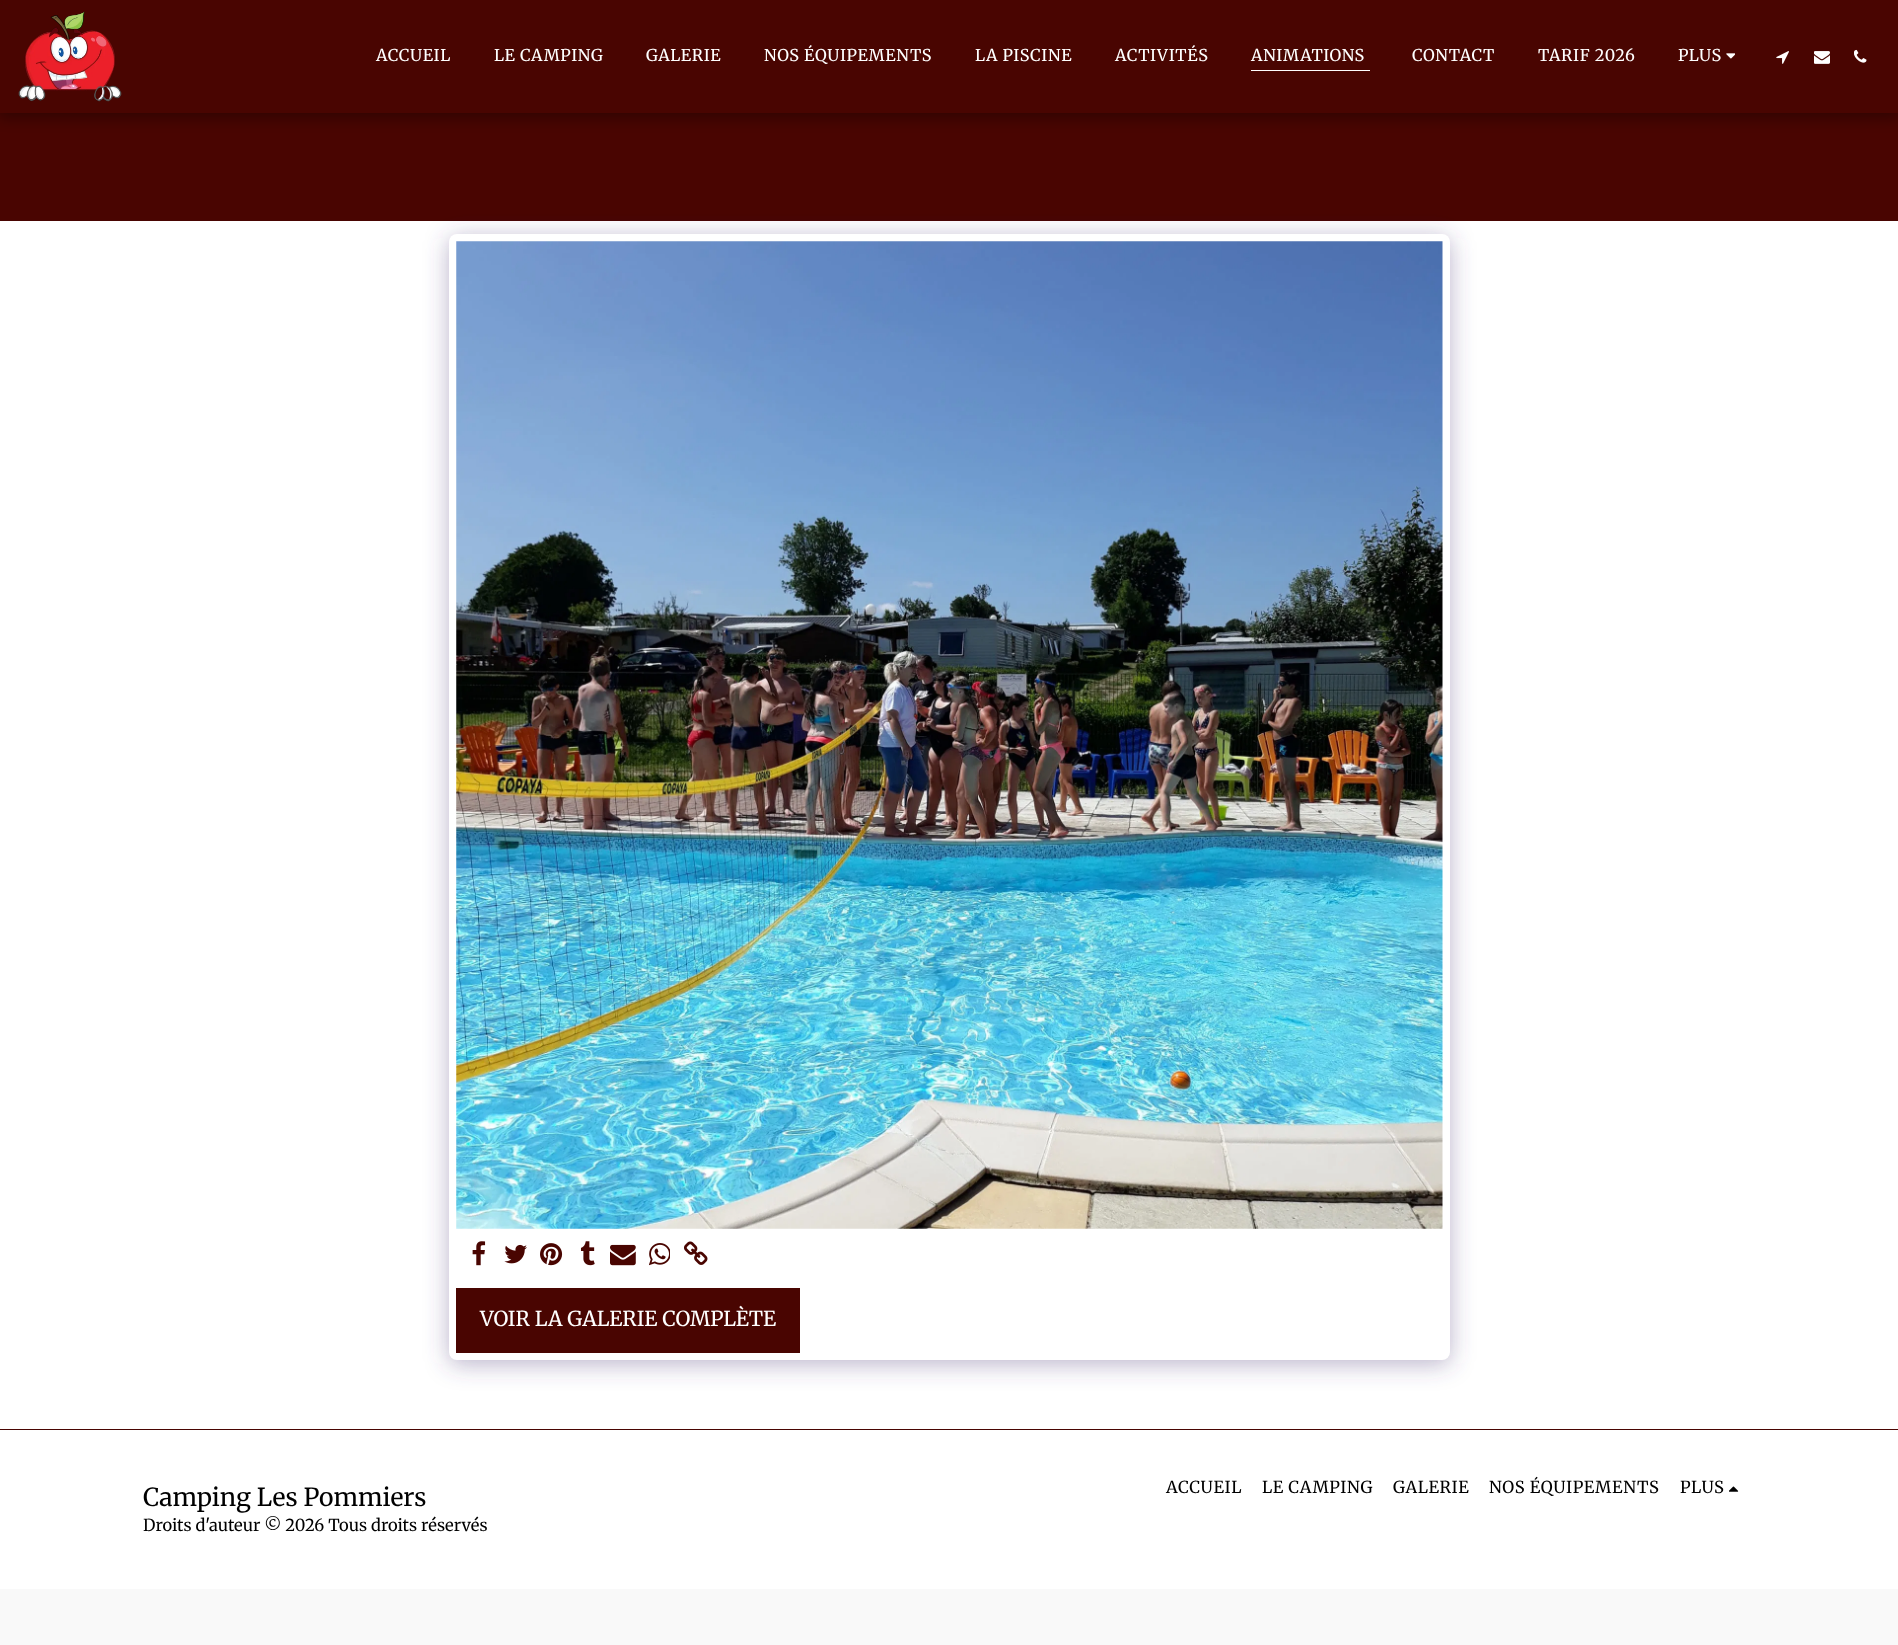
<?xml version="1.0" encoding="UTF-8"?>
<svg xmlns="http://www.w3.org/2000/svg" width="1898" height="1645">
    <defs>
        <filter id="blur1" x="-50%" y="-200%" width="200%" height="500%"><feGaussianBlur stdDeviation="7.5"/></filter>
        <filter id="blur2" x="-50%" y="-200%" width="200%" height="500%"><feGaussianBlur stdDeviation="12.5"/></filter>
    </defs>
    <rect width="100%" height="100%" fill="#F9F9F9"/>
    <rect x="0" y="113" width="1898" height="108" fill="#490501"/>
    <rect x="-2" y="0" width="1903" height="118" fill="#000000" fill-opacity="0.35" filter="url(#blur1)"/>
    <rect x="0" y="0" width="1898" height="113" fill="#490501"/>
    <image x="18" y="11" width="104" height="91" href="img_01.png"/>
    <text x="376" y="61" font-family="Merriweather" font-size="16.25" letter-spacing="0.6" fill="#FFFFFF">ACCUEIL</text>
    <text x="494" y="61" font-family="Merriweather" font-size="16.25" letter-spacing="0.6" fill="#FFFFFF">LE CAMPING</text>
    <text x="646" y="61" font-family="Merriweather" font-size="16.25" letter-spacing="0.6" fill="#FFFFFF">GALERIE</text>
    <text x="764" y="61" font-family="Merriweather" font-size="16.25" letter-spacing="0.6" fill="#FFFFFF">NOS ÉQUIPEMENTS</text>
    <text x="975" y="61" font-family="Merriweather" font-size="16.25" letter-spacing="0.6" fill="#FFFFFF">LA PISCINE</text>
    <text x="1115" y="61" font-family="Merriweather" font-size="16.25" letter-spacing="0.6" fill="#FFFFFF">ACTIVITÉS</text>
    <text x="1251" y="61" font-family="Merriweather" font-size="16.25" letter-spacing="0.6" fill="#FFFFFF">ANIMATIONS</text>
    <rect x="1251" y="70" width="119" height="1" fill="#FFFFFF"/>
    <text x="1412" y="61" font-family="Merriweather" font-size="16.25" letter-spacing="0.6" fill="#FFFFFF">CONTACT</text>
    <text x="1538" y="61" font-family="Merriweather" font-size="16.25" letter-spacing="0.6" fill="#FFFFFF">TARIF 2026</text>
    <text x="1678" y="61" font-family="Merriweather" font-size="16.25" letter-spacing="0.6" fill="#FFFFFF">PLUS</text>
    <image x="1726" y="53" width="9" height="6" href="img_02.png"/>
    <image x="1776" y="51" width="13" height="13" href="img_03.png"/>
    <image x="1814" y="51" width="16" height="13" href="img_04.png"/>
    <image x="1854" y="49" width="13" height="14" href="img_05.png"/>
    <rect x="0" y="221" width="1898" height="1208" fill="#FFFFFF"/>
    <rect x="449" y="238" width="1001" height="1126" rx="8" fill="#4D3F7A" fill-opacity="0.4" filter="url(#blur2)"/>
    <rect x="449" y="234" width="1001" height="1126" rx="8" fill="#FFFFFF"/>
    <image x="456" y="241" width="987" height="988" href="img_06.png"/>
    <image x="472" y="1241" width="14" height="25" href="img_07.png"/>
    <image x="504" y="1244" width="23" height="20" href="img_08.png"/>
    <image x="540" y="1243" width="23" height="23" href="img_09.png"/>
    <image x="580" y="1241" width="15" height="25" href="img_10.png"/>
    <image x="610" y="1244" width="26" height="22" href="img_11.png"/>
    <image x="649" y="1243" width="21" height="23" href="img_12.png"/>
    <image x="684" y="1241" width="24" height="24" href="img_13.png"/>
    <rect x="456" y="1288" width="344" height="65" fill="#490501"/>
    <text x="480" y="1326" font-family="Merriweather" font-size="20.6" fill="#FFFFFF">VOIR LA GALERIE COMPLÈTE</text>
    <rect x="0" y="1430" width="1898" height="159" fill="#FFFFFF"/>
    <rect x="0" y="1429" width="1898" height="1" fill="#490501"/>
    <text x="143" y="1506" font-family="Merriweather" font-size="24.75" fill="#000000">Camping Les Pommiers</text>
    <text x="143" y="1531" font-family="Merriweather" font-size="16.5" fill="#000000">Droits d'auteur © 2026 Tous droits réservés</text>
    <text x="1166" y="1493" font-family="Merriweather" font-size="16.5" letter-spacing="0.6" fill="#000000">ACCUEIL</text>
    <text x="1262" y="1493" font-family="Merriweather" font-size="16.5" letter-spacing="0.6" fill="#000000">LE CAMPING</text>
    <text x="1393" y="1493" font-family="Merriweather" font-size="16.5" letter-spacing="0.6" fill="#000000">GALERIE</text>
    <text x="1489" y="1493" font-family="Merriweather" font-size="16.5" letter-spacing="0.6" fill="#000000">NOS ÉQUIPEMENTS</text>
    <text x="1680" y="1493" font-family="Merriweather" font-size="16.5" letter-spacing="0.6" fill="#000000">PLUS</text>
    <image x="1729" y="1486" width="10" height="6" href="img_14.png"/>
</svg>
